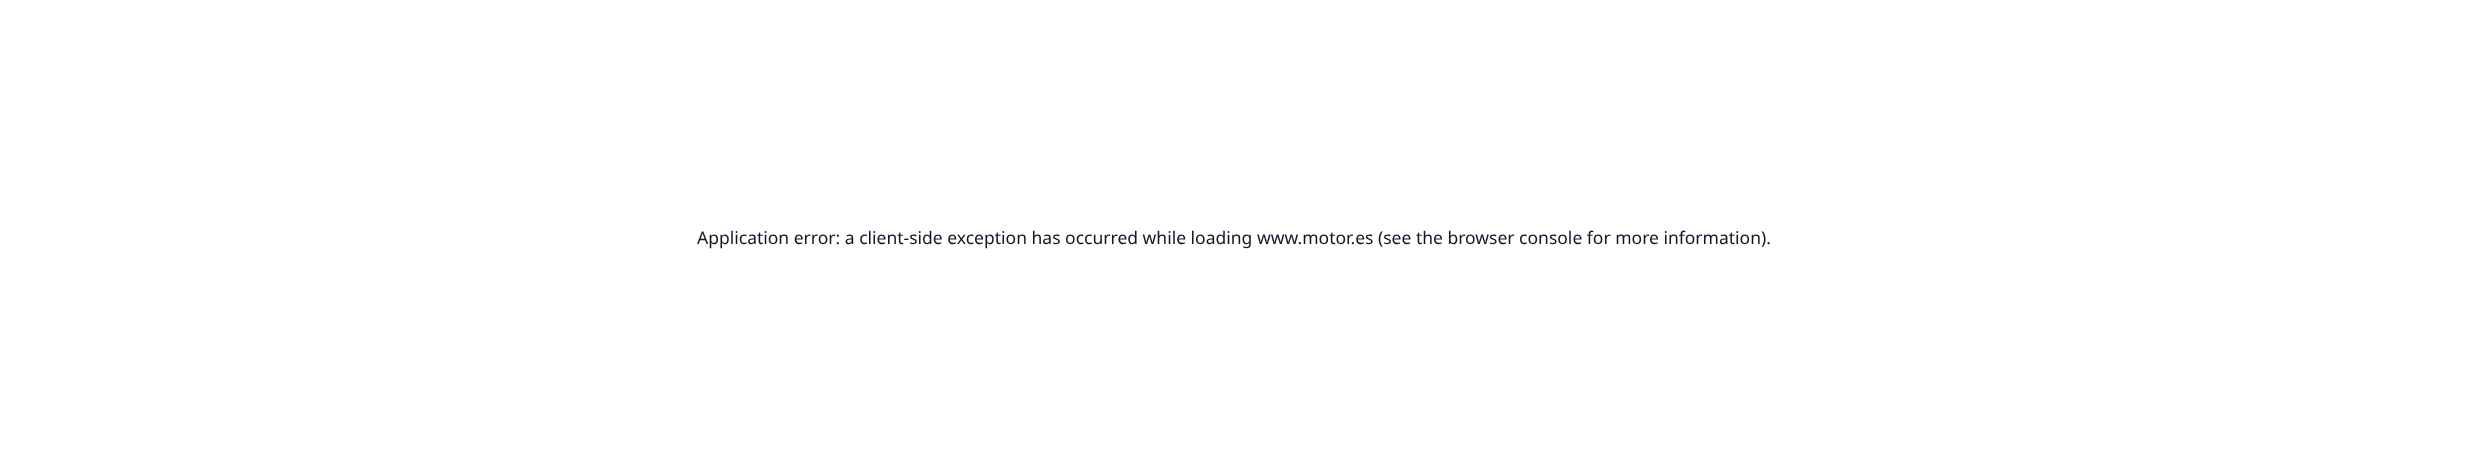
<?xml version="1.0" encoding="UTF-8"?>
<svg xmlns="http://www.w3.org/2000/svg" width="2467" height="476">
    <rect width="100%" height="100%" fill="#FFFFFF"/>
    <text x="697" y="244" font-family="Noto Sans" font-size="17.5" fill="#101828">Application error: a client-side exception has occurred while loading www.motor.es (see the browser console for more information).</text>
</svg>
